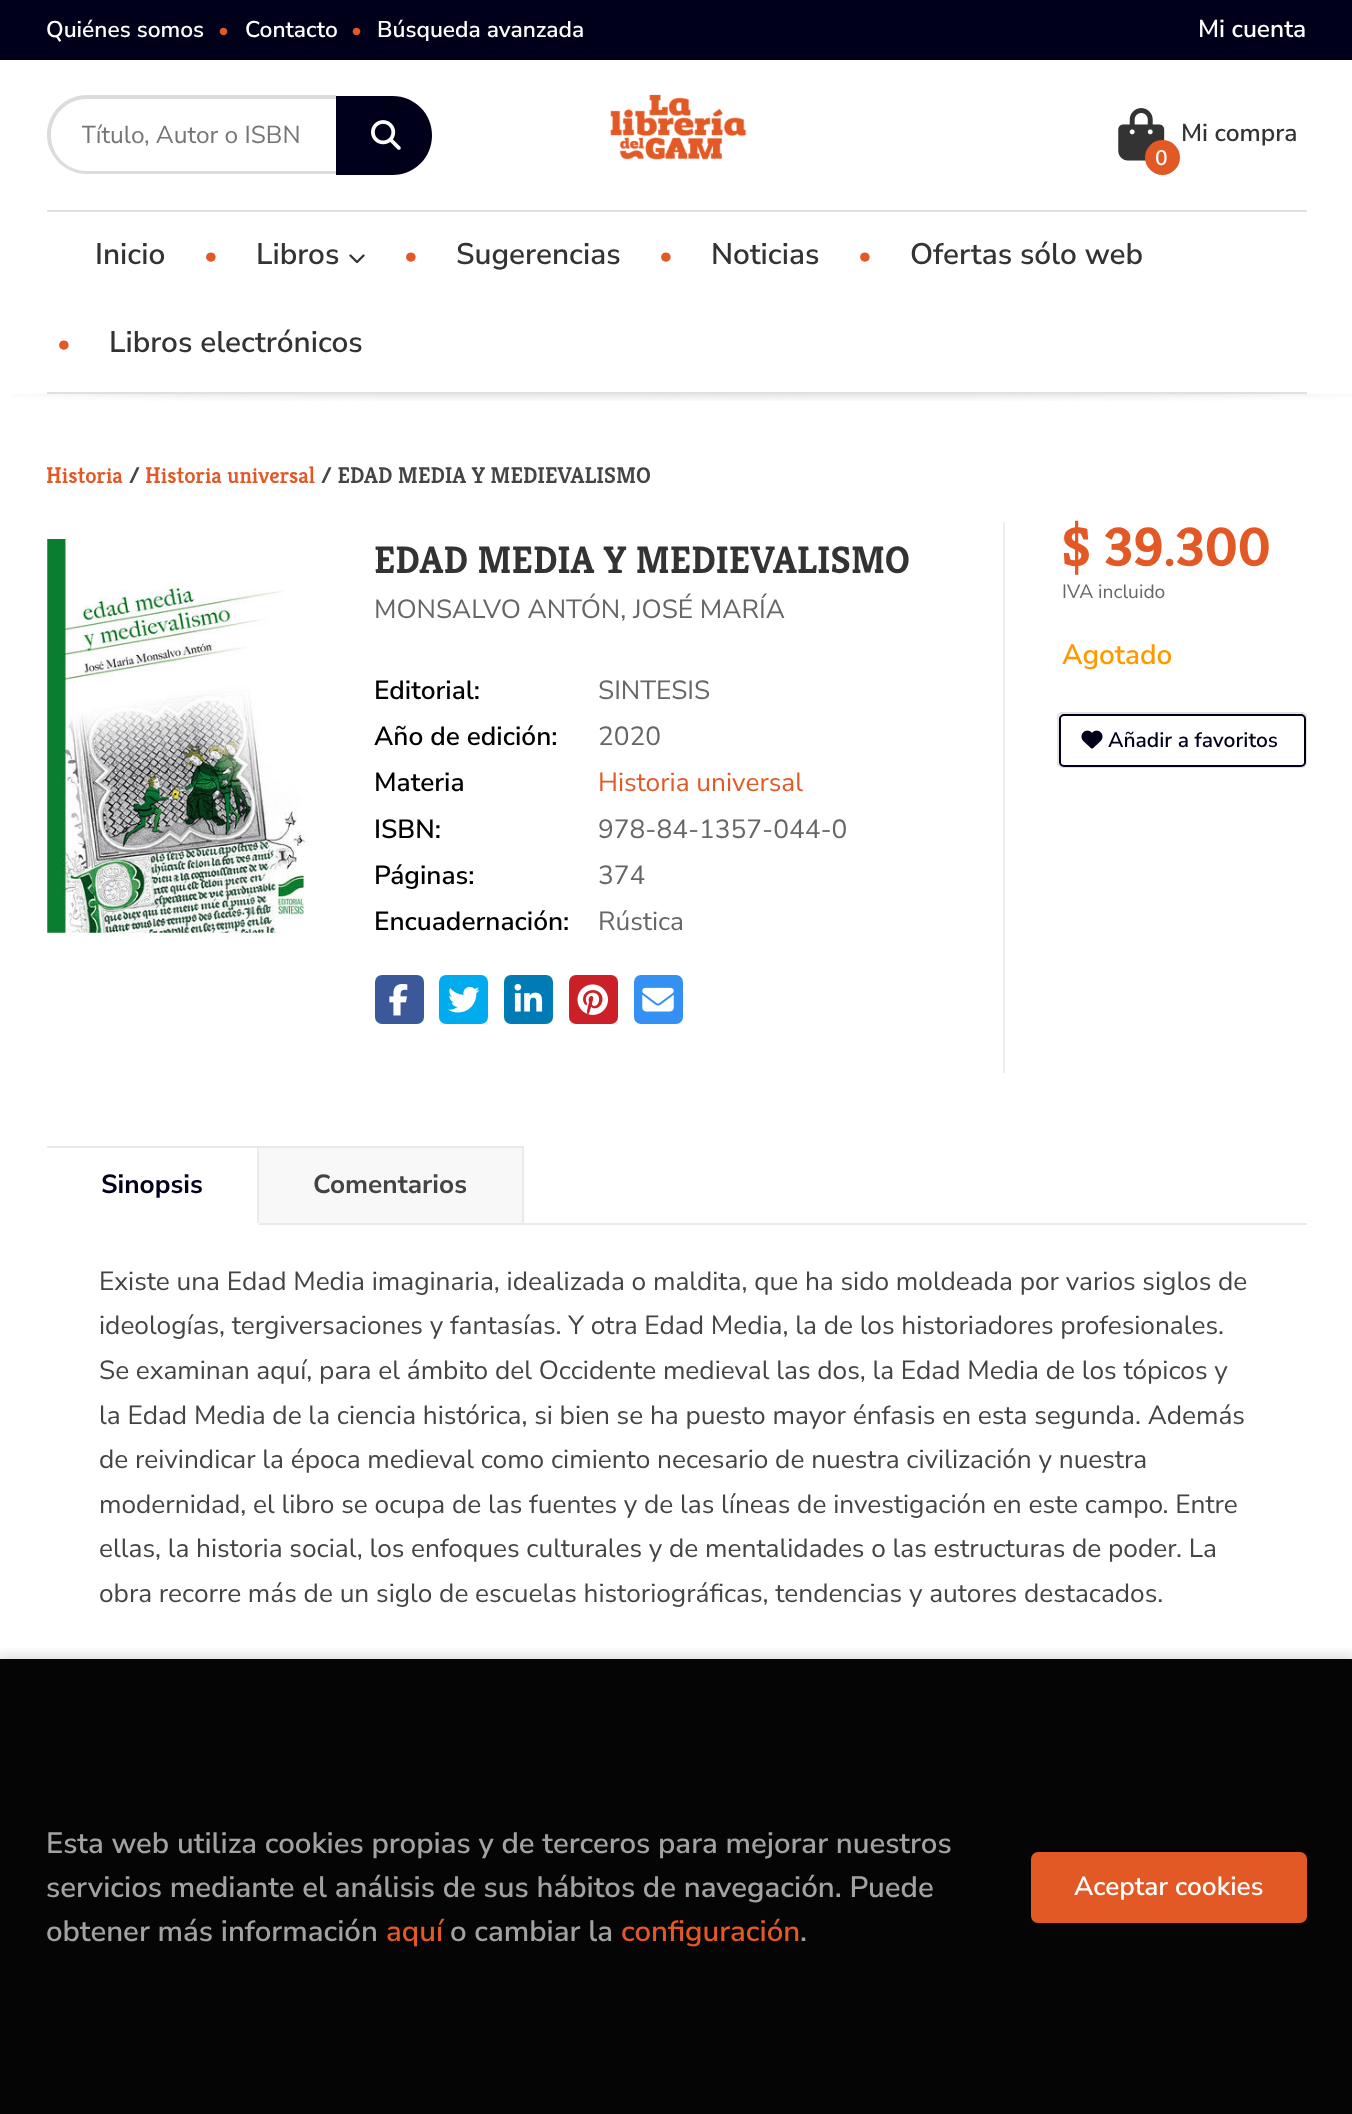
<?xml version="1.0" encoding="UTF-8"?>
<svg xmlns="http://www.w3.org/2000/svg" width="1352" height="2114">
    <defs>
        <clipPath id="clip1"><rect x="82" y="119" width="254" height="33"/></clipPath>
        <clipPath id="clip2"><rect x="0" y="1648" width="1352" height="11"/></clipPath>
        <filter id="blur1" x="-50%" y="-200%" width="200%" height="500%"><feGaussianBlur stdDeviation="7"/></filter>
    </defs>
    <rect width="100%" height="100%" fill="#FFFFFF"/>
    <rect x="0" y="1659" width="1352" height="455" fill="#050505"/>
    <rect x="0" y="0" width="1352" height="60" fill="#01001B"/>
    <text x="46" y="37" font-family="Nunito Sans" font-size="22.75" font-weight="600" fill="#FFFFFF">Quiénes somos</text>
    <text x="218" y="37" font-family="Nunito Sans" font-size="21" font-weight="600" fill="#E35925">•</text>
    <text x="245" y="37" font-family="Nunito Sans" font-size="22.75" font-weight="600" fill="#FFFFFF">Contacto</text>
    <text x="351" y="37" font-family="Nunito Sans" font-size="21" font-weight="600" fill="#E35925">•</text>
    <text x="377" y="37" font-family="Nunito Sans" font-size="22.75" font-weight="600" fill="#FFFFFF">Búsqueda avanzada</text>
    <text x="1198" y="37" font-family="Nunito Sans" font-size="24.5" font-weight="600" fill="#FFFFFF">Mi cuenta</text>
    <path d="M 87 95 H 336 V 174 H 87 C 65 174 47 156 47 135 C 47 113 65 95 87 95 Z M 87 99 H 336 V 171 H 87 C 67 171 51 155 51 135 C 51 115 67 99 87 99 Z" fill="#DCDCDC" fill-rule="evenodd"/>
    <g clip-path="url(#clip1)">
        <text x="81" y="143" font-family="Nunito Sans" font-size="24.5" fill="#757575">Título, Autor o ISBN</text>
    </g>
    <path d="M 336 96 H 392.5 C 414.5 96 432 113.5 432 135.5 C 432 157.5 414.5 175 392.5 175 H 336 Z" fill="#01001B"/>
    <image x="371" y="120" width="30" height="30" href="img_01.png"/>
    <image x="610" y="94" width="137" height="66" href="img_02.png"/>
    <image x="1118" y="108" width="47" height="53" href="img_03.png"/>
    <text x="1181" y="141" font-family="Nunito Sans" font-size="24.5" font-weight="600" fill="#333333">Mi compra</text>
    <circle cx="1162.5" cy="157.5" r="17.5" fill="#E35925"/>
    <text x="1155" y="165" font-family="Nunito Sans" font-size="21" font-weight="600" fill="#FFFFFF">0</text>
    <image x="11" y="393" width="1341" height="8" href="img_04.png"/>
    <rect x="47" y="210" width="1260" height="2" fill="#E1E0E0"/>
    <rect x="47" y="392" width="1260" height="2" fill="#E1E0E0"/>
    <text x="95" y="264" font-family="Nunito Sans" font-size="29.75" font-weight="600" fill="#333333">Inicio</text>
    <text x="204" y="264" font-family="Nunito Sans" font-size="26.25" font-weight="600" fill="#E35925">•</text>
    <text x="256" y="264" font-family="Nunito Sans" font-size="29.75" font-weight="600" fill="#333333">Libros</text>
    <image x="349" y="254" width="16" height="10" href="img_05.png"/>
    <text x="404" y="264" font-family="Nunito Sans" font-size="26.25" font-weight="600" fill="#E35925">•</text>
    <text x="456" y="264" font-family="Nunito Sans" font-size="29.75" font-weight="600" fill="#333333">Sugerencias</text>
    <text x="659" y="264" font-family="Nunito Sans" font-size="26.25" font-weight="600" fill="#E35925">•</text>
    <text x="711" y="264" font-family="Nunito Sans" font-size="29.75" font-weight="600" fill="#333333">Noticias</text>
    <text x="858" y="264" font-family="Nunito Sans" font-size="26.25" font-weight="600" fill="#E35925">•</text>
    <text x="910" y="264" font-family="Nunito Sans" font-size="29.75" font-weight="600" fill="#333333">Ofertas sólo web</text>
    <text x="57" y="352" font-family="Nunito Sans" font-size="26.25" font-weight="600" fill="#E35925">•</text>
    <text x="109" y="352" font-family="Nunito Sans" font-size="29.75" font-weight="600" fill="#333333">Libros electrónicos</text>
    <text x="46" y="483" font-family="Kreon" font-size="22.75" font-weight="600" fill="#E35925">Historia</text>
    <text x="129" y="483" font-family="Kreon" font-size="22.75" font-weight="600" fill="#444444">/</text>
    <text x="145" y="483" font-family="Kreon" font-size="22.75" font-weight="600" fill="#E35925">Historia universal</text>
    <text x="321" y="483" font-family="Kreon" font-size="22.75" font-weight="600" fill="#444444">/ EDAD MEDIA Y MEDIEVALISMO</text>
    <rect x="1003" y="522" width="2" height="551" fill="#EEEEEE"/>
    <image x="47" y="539" width="263" height="394" href="img_06.png"/>
    <text x="374" y="573" font-family="Kreon" font-size="38.5" font-weight="700" fill="#333333">EDAD MEDIA Y MEDIEVALISMO</text>
    <text x="374" y="618" font-family="Nunito Sans" font-size="26.25" fill="#666666">MONSALVO ANTÓN, JOSÉ MARÍA</text>
    <text x="374" y="699" font-family="Nunito Sans" font-size="26.25" font-weight="600" fill="#000000">Editorial:</text>
    <text x="598" y="699" font-family="Nunito Sans" font-size="26.25" fill="#666666">SINTESIS</text>
    <text x="374" y="745" font-family="Nunito Sans" font-size="26.25" font-weight="600" fill="#000000">Año de edición:</text>
    <text x="598" y="745" font-family="Nunito Sans" font-size="26.25" fill="#666666">2020</text>
    <text x="374" y="791" font-family="Nunito Sans" font-size="26.25" font-weight="600" fill="#000000">Materia</text>
    <text x="598" y="791" font-family="Nunito Sans" font-size="26.25" fill="#E35925">Historia universal</text>
    <text x="374" y="838" font-family="Nunito Sans" font-size="26.25" font-weight="600" fill="#000000">ISBN:</text>
    <text x="598" y="838" font-family="Nunito Sans" font-size="26.25" fill="#666666">978-84-1357-044-0</text>
    <text x="374" y="884" font-family="Nunito Sans" font-size="26.25" font-weight="600" fill="#000000">Páginas:</text>
    <text x="598" y="884" font-family="Nunito Sans" font-size="26.25" fill="#666666">374</text>
    <text x="374" y="930" font-family="Nunito Sans" font-size="26.25" font-weight="600" fill="#000000">Encuadernación:</text>
    <text x="598" y="930" font-family="Nunito Sans" font-size="26.25" fill="#666666">Rústica</text>
    <rect x="375" y="975" width="49" height="49" rx="7" fill="#3B5998"/>
    <image x="389" y="983" width="19" height="33" href="img_07.png"/>
    <rect x="439" y="975" width="49" height="49" rx="7" fill="#00ACED"/>
    <image x="448" y="986" width="32" height="27" href="img_08.png"/>
    <rect x="504" y="975" width="49" height="49" rx="7" fill="#007BB6"/>
    <image x="514" y="983" width="29" height="29" href="img_09.png"/>
    <rect x="569" y="975" width="49" height="49" rx="7" fill="#CB2027"/>
    <image x="577" y="984" width="31" height="31" href="img_10.png"/>
    <rect x="634" y="975" width="49" height="49" rx="7" fill="#3490F3"/>
    <image x="642" y="987" width="32" height="25" href="img_11.png"/>
    <text x="1062" y="566" font-family="Kreon" font-size="56" font-weight="700" fill="#E35925">$ 39.300</text>
    <text x="1062" y="598" font-family="Nunito Sans" font-size="19.25" fill="#666666">IVA incluido</text>
    <text x="1062" y="664" font-family="Nunito Sans" font-size="28" font-weight="600" fill="#FF9900">Agotado</text>
    <rect x="1058" y="713" width="248" height="54" rx="4" fill="none" stroke="#E3E3E3" stroke-width="2"/>
    <rect x="1060" y="715" width="245" height="51" rx="4" fill="none" stroke="#01001B" stroke-width="2"/>
    <image x="1081" y="730" width="22" height="19" href="img_12.png"/>
    <text x="1108" y="747" font-family="Nunito Sans" font-size="21" font-weight="600" fill="#01001B">Añadir a favoritos</text>
    <rect x="259" y="1223" width="1048" height="2" fill="#EAEAEA"/>
    <rect x="47" y="1146" width="476" height="2" fill="#EAEAEA"/>
    <rect x="257" y="1146" width="2" height="79" fill="#EAEAEA"/>
    <rect x="257" y="1223" width="2" height="2" fill="#FDFDFD"/>
    <text x="101" y="1193" font-family="Nunito Sans" font-size="26.25" font-weight="700" fill="#01001B">Sinopsis</text>
    <rect x="259" y="1148" width="263" height="75" fill="#F8F8F8"/>
    <rect x="522" y="1146" width="2" height="77" fill="#EAEAEA"/>
    <text x="313" y="1193" font-family="Nunito Sans" font-size="26.25" font-weight="700" fill="#444444">Comentarios</text>
    <text font-family="Nunito Sans" font-size="26.25" fill="#444444">
        <tspan x="99" y="1290">Existe una Edad Media imaginaria, idealizada o maldita, que ha sido moldeada por varios siglos de</tspan>
        <tspan x="99" y="1334">ideologías, tergiversaciones y fantasías. Y otra Edad Media, la de los historiadores profesionales.</tspan>
        <tspan x="99" y="1379">Se examinan aquí, para el ámbito del Occidente medieval las dos, la Edad Media de los tópicos y</tspan>
        <tspan x="99" y="1424">la Edad Media de la ciencia histórica, si bien se ha puesto mayor énfasis en esta segunda. Además</tspan>
        <tspan x="99" y="1468">de reivindicar la época medieval como cimiento necesario de nuestra civilización y nuestra</tspan>
        <tspan x="99" y="1513">modernidad, el libro se ocupa de las fuentes y de las líneas de investigación en este campo. Entre</tspan>
        <tspan x="99" y="1557">ellas, la historia social, los enfoques culturales y de mentalidades o las estructuras de poder. La</tspan>
        <tspan x="99" y="1602">obra recorre más de un siglo de escuelas historiográficas, tendencias y autores destacados.</tspan>
    </text>
    <g clip-path="url(#clip2)">
        <rect x="-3" y="1656" width="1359" height="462" fill="#000000" fill-opacity="0.15" filter="url(#blur1)"/>
    </g>
    <text font-family="Nunito Sans" font-size="29.4" font-weight="600" fill="#A2A2A2">
        <tspan x="46" y="1853">Esta web utiliza cookies propias y de terceros para mejorar nuestros</tspan>
        <tspan x="46" y="1897">servicios mediante el análisis de sus hábitos de navegación. Puede</tspan>
        <tspan x="46" y="1941">obtener más información</tspan>
    </text>
    <text x="386" y="1941" font-family="Nunito Sans" font-size="29.4" font-weight="600" fill="#E35925">aquí</text>
    <text x="450" y="1941" font-family="Nunito Sans" font-size="29.4" font-weight="600" fill="#A2A2A2">o cambiar la</text>
    <text x="621" y="1941" font-family="Nunito Sans" font-size="29.4" font-weight="600" fill="#E35925">configuración</text>
    <text x="800" y="1941" font-family="Nunito Sans" font-size="29.4" font-weight="600" fill="#A2A2A2">.</text>
    <rect x="1032" y="1853" width="274" height="69" rx="6" fill="#E35925" stroke="#E35925" stroke-width="2"/>
    <text x="1074" y="1895" font-family="Nunito Sans" font-size="26.25" font-weight="600" fill="#FFFFFF">Aceptar cookies</text>
</svg>
